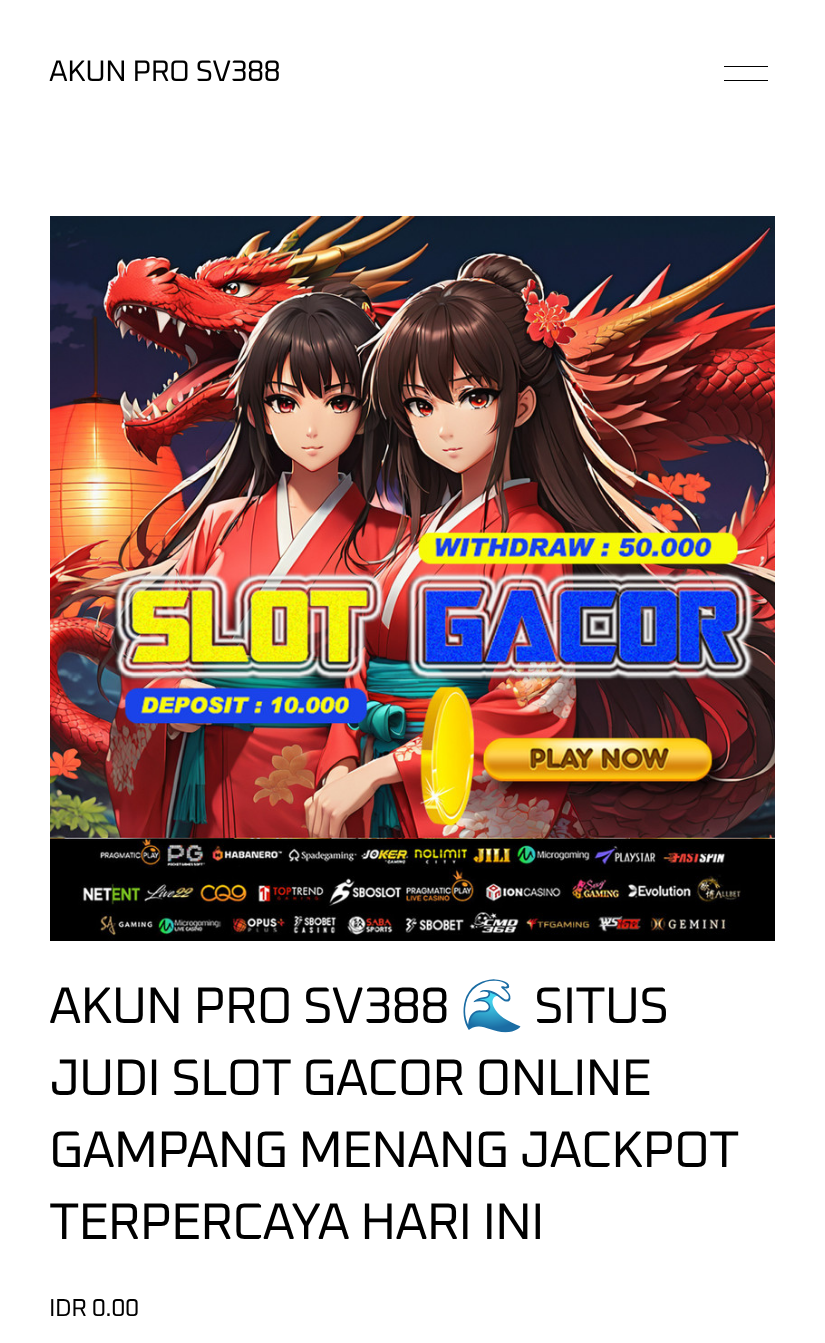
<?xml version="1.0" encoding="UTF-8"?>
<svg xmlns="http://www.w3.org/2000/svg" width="825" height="1343">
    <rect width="100%" height="100%" fill="#FFFFFF"/>
    <text x="49" y="81" font-family="Oxanium" font-size="29.75" letter-spacing="-0.6" fill="#000000">AKUN PRO SV388</text>
    <rect x="724" y="66" width="44" height="1" fill="#000000"/>
    <rect x="724" y="80" width="44" height="1" fill="#000000"/>
    <image x="50" y="216" width="725" height="725" href="img_01.png"/>
    <text x="49" y="1023" font-family="Oxanium" font-size="51.4" letter-spacing="-1" fill="#000000">AKUN PRO SV388</text>
    <text x="460" y="1023" font-family="Noto Color Emoji" font-size="51.4" letter-spacing="-1" fill="#000000">🌊</text>
    <text x="534" y="1023" font-family="Oxanium" font-size="51.4" letter-spacing="-1" fill="#000000">SITUS</text>
    <text font-family="Oxanium" font-size="51.4" letter-spacing="-1" fill="#000000">
        <tspan x="49" y="1095">JUDI SLOT GACOR ONLINE</tspan>
        <tspan x="49" y="1167">GAMPANG MENANG JACKPOT</tspan>
        <tspan x="49" y="1239">TERPERCAYA HARI INI</tspan>
    </text>
    <text x="49" y="1316" font-family="Oxanium" font-size="24.5" letter-spacing="-0.5" fill="#000000">IDR 0.00</text>
</svg>
